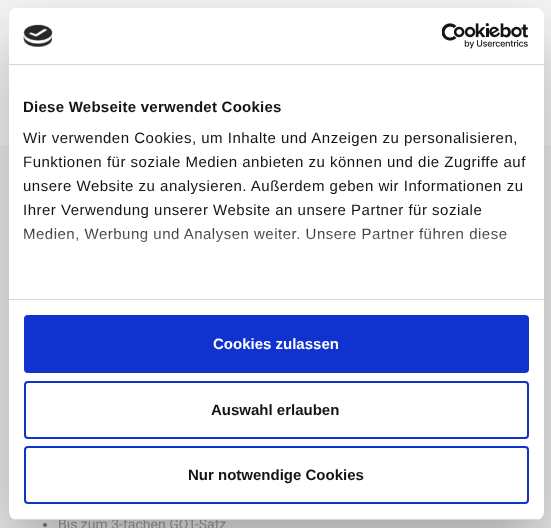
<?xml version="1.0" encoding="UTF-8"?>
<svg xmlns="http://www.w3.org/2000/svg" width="551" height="528">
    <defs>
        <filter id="blur1" x="-50%" y="-200%" width="200%" height="500%"><feGaussianBlur stdDeviation="34"/></filter>
        <linearGradient id="g1" gradientUnits="userSpaceOnUse" x1="270" y1="299" x2="270" y2="224"><stop offset="0" stop-color="#FFFFFF"/><stop offset="0.5" stop-color="#FFFFFF" stop-opacity="0.8"/><stop offset="1" stop-color="#FFFFFF" stop-opacity="0"/></linearGradient>
        <clipPath id="clip1"><rect x="9" y="8" width="535" height="512" rx="8"/></clipPath>
    </defs>
    <rect width="100%" height="100%" fill="#EDEDED"/>
    <rect x="0" y="0" width="551" height="145" fill="#F5F5F5"/>
    <circle cx="45" cy="525" r="2" fill="#7A7A7A"/>
    <rect x="9" y="40" width="535" height="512" rx="8" fill="#000000" fill-opacity="0.3" filter="url(#blur1)"/>
    <text x="58" y="529" font-family="Roboto" font-size="14" fill="#7A7A7A">Bis zum 3-fachen GOT-Satz</text>
    <rect x="9" y="8" width="535" height="512" rx="8" fill="#FFFFFF"/>
    <rect x="9" y="64" width="535" height="1" fill="#D6D6D6"/>
    <image x="23" y="24" width="30" height="23" href="img_01.png"/>
    <image x="442" y="23" width="87" height="26" href="img_02.png"/>
    <rect x="9" y="299" width="535" height="1" fill="#D6D6D6"/>
    <text x="23" y="112" font-family="Liberation Sans" font-size="15" font-weight="700" letter-spacing="0.25" fill="#141414">Diese Webseite verwendet Cookies</text>
    <text font-family="Liberation Sans" font-size="15" letter-spacing="0.5" fill="#141414">
        <tspan x="23" y="143">Wir verwenden Cookies, um Inhalte und Anzeigen zu personalisieren,</tspan>
        <tspan x="23" y="167">Funktionen für soziale Medien anbieten zu können und die Zugriffe auf</tspan>
        <tspan x="23" y="191">unsere Website zu analysieren. Außerdem geben wir Informationen zu</tspan>
        <tspan x="23" y="215">Ihrer Verwendung unserer Website an unsere Partner für soziale</tspan>
        <tspan x="23" y="239">Medien, Werbung und Analysen weiter. Unsere Partner führen diese</tspan>
    </text>
    <rect x="24" y="228" width="483" height="15" fill="url(#g1)"/>
    <g clip-path="url(#clip1)">
        <rect x="9" y="519" width="535" height="1" fill="#D6D6D6"/>
    </g>
    <rect x="25" y="316" width="503" height="56" rx="3" fill="#1032CF" stroke="#1032CF" stroke-width="2"/>
    <text x="213" y="349" font-family="Liberation Sans" font-size="15" font-weight="700" fill="#FFFFFF">Cookies zulassen</text>
    <rect x="25" y="382" width="503" height="56" rx="3" fill="none" stroke="#1032CF" stroke-width="2"/>
    <text x="211" y="415" font-family="Liberation Sans" font-size="15" font-weight="700" fill="#141414">Auswahl erlauben</text>
    <rect x="25" y="447" width="503" height="56" rx="3" fill="none" stroke="#1032CF" stroke-width="2"/>
    <text x="188" y="480" font-family="Liberation Sans" font-size="15" font-weight="700" fill="#141414">Nur notwendige Cookies</text>
</svg>
